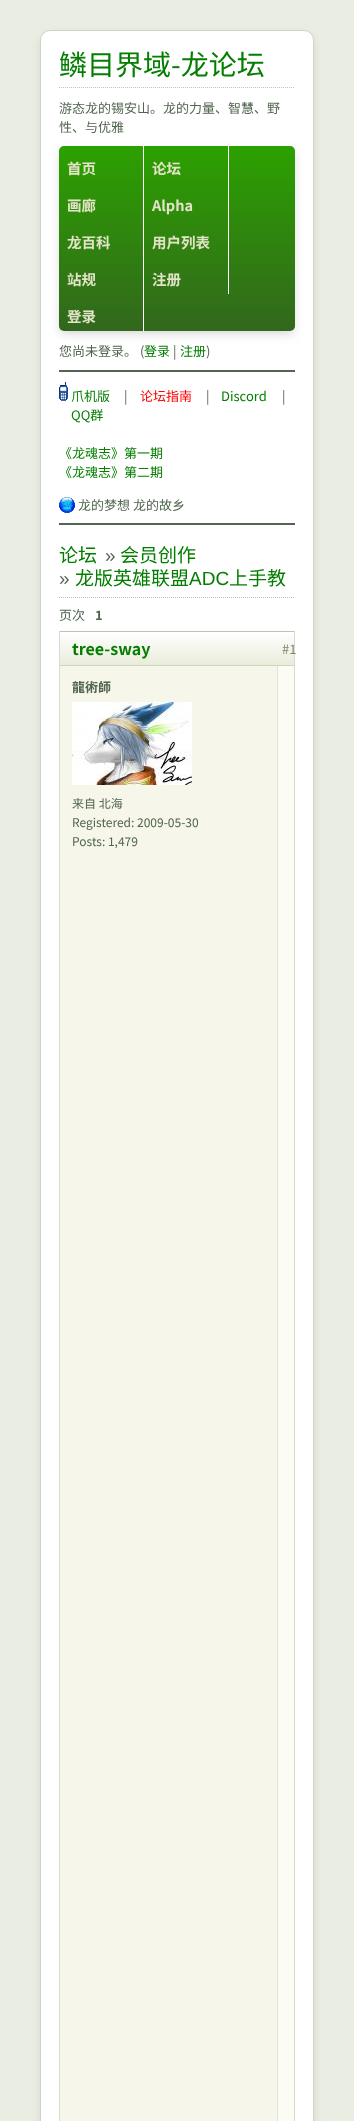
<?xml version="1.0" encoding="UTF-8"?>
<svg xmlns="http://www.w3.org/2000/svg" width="354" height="2121">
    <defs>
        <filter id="blur1" x="-50%" y="-200%" width="200%" height="500%"><feGaussianBlur stdDeviation="5"/></filter>
        <linearGradient id="g1" gradientUnits="userSpaceOnUse" x1="177" y1="146" x2="177" y2="331"><stop offset="0" stop-color="#2CA100"/><stop offset="1" stop-color="#32671D"/></linearGradient>
        <linearGradient id="g2" gradientUnits="userSpaceOnUse" x1="182" y1="632" x2="182" y2="665"><stop offset="0" stop-color="#FFFFFF"/><stop offset="1" stop-color="#EAECDA"/></linearGradient>
    </defs>
    <rect width="100%" height="100%" fill="#EAEDE2"/>
    <rect x="41" y="35" width="272" height="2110" rx="9" fill="#C8C8C8" fill-opacity="0.7" filter="url(#blur1)"/>
    <rect x="40.5" y="30.5" width="273" height="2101" rx="9.5" fill="#FFFFFF" stroke="#CCD7C1"/>
    <text x="59" y="75" font-family="Noto Sans CJK SC" font-size="28" fill="#047E00">鳞目界域-龙论坛</text>
    <path d="M 59 87.5 H 295" fill="none" stroke="#BBC6B2" stroke-dasharray="1 1"/>
    <text font-family="Noto Sans CJK SC" font-size="13" fill="#526550">
        <tspan x="59" y="113">游态龙的锡安山。龙的力量、智慧、野</tspan>
        <tspan x="59" y="132">性、与优雅</tspan>
    </text>
    <rect x="60" y="151" width="234" height="183" rx="4" fill="#C8C8C8" fill-opacity="0.7" filter="url(#blur1)"/>
    <rect x="59" y="146" width="236" height="185" rx="5" fill="url(#g1)"/>
    <rect x="143" y="146" width="1" height="185" fill="#FFFFFF"/>
    <text x="67" y="174" font-family="Noto Sans CJK SC" font-size="14.5" font-weight="700" fill="#E3E3C8">首页</text>
    <rect x="228" y="146" width="1" height="148" fill="#FFFFFF"/>
    <text x="152" y="174" font-family="Noto Sans CJK SC" font-size="14.5" font-weight="700" fill="#E3E3C8">论坛</text>
    <text x="67" y="211" font-family="Noto Sans CJK SC" font-size="14.5" font-weight="700" fill="#E3E3C8">画廊</text>
    <text x="152" y="211" font-family="Noto Sans CJK SC" font-size="14.5" font-weight="700" fill="#E3E3C8">Alpha</text>
    <text x="67" y="248" font-family="Noto Sans CJK SC" font-size="14.5" font-weight="700" fill="#E3E3C8">龙百科</text>
    <text x="152" y="248" font-family="Noto Sans CJK SC" font-size="14.5" font-weight="700" fill="#E3E3C8">用户列表</text>
    <text x="67" y="285" font-family="Noto Sans CJK SC" font-size="14.5" font-weight="700" fill="#E3E3C8">站规</text>
    <text x="152" y="285" font-family="Noto Sans CJK SC" font-size="14.5" font-weight="700" fill="#E3E3C8">注册</text>
    <text x="67" y="322" font-family="Noto Sans CJK SC" font-size="14.5" font-weight="700" fill="#E3E3C8">登录</text>
    <text x="59" y="356" font-family="Noto Sans CJK SC" font-size="13" fill="#526550">您尚未登录。 (</text>
    <text x="144" y="356" font-family="Noto Sans CJK SC" font-size="13" fill="#047E00">登录</text>
    <text x="173" y="356" font-family="Noto Sans CJK SC" font-size="13" fill="#526550">|</text>
    <text x="180" y="356" font-family="Noto Sans CJK SC" font-size="13" fill="#047E00">注册</text>
    <text x="206" y="356" font-family="Noto Sans CJK SC" font-size="13" fill="#526550">)</text>
    <rect x="59" y="370" width="236" height="2" fill="#526550"/>
    <image x="59" y="382" width="9" height="19" href="img_01.png"/>
    <text x="71" y="401" font-family="Noto Sans CJK SC" font-size="13" fill="#047E00">爪机版</text>
    <text x="124" y="401" font-family="Noto Sans CJK SC" font-size="13" fill="#526550">|</text>
    <text x="140" y="401" font-family="Noto Sans CJK SC" font-size="13" fill="#FF0000">论坛指南</text>
    <text x="206" y="401" font-family="Noto Sans CJK SC" font-size="13" fill="#526550">|</text>
    <text x="221" y="401" font-family="Noto Sans CJK SC" font-size="13" fill="#047E00">Discord</text>
    <text x="282" y="401" font-family="Noto Sans CJK SC" font-size="13" fill="#526550">|</text>
    <text x="71" y="420" font-family="Noto Sans CJK SC" font-size="13" fill="#047E00">QQ群</text>
    <text font-family="Noto Sans CJK SC" font-size="13" fill="#047E00">
        <tspan x="59" y="458">《龙魂志》第一期</tspan>
        <tspan x="59" y="477">《龙魂志》第二期</tspan>
    </text>
    <image x="59" y="497" width="16" height="16" href="img_02.png"/>
    <text x="78" y="510" font-family="Noto Sans CJK SC" font-size="13" fill="#526550">龙的梦想 龙的故乡</text>
    <rect x="59" y="523" width="236" height="2" fill="#526550"/>
    <text x="59" y="562" font-family="Noto Sans CJK SC" font-size="19" fill="#047E00">论坛</text>
    <text x="105" y="562" font-family="Liberation Sans" font-size="19" fill="#526550">»</text>
    <text x="120" y="562" font-family="Noto Sans CJK SC" font-size="19" fill="#047E00">会员创作</text>
    <text x="59" y="585" font-family="Liberation Sans" font-size="19" fill="#526550">»</text>
    <text x="75" y="585" font-family="Noto Sans CJK SC" font-size="19" fill="#047E00">龙版英雄联盟</text>
    <text x="189" y="585" font-family="Liberation Sans" font-size="19" fill="#047E00">ADC</text>
    <text x="229" y="585" font-family="Noto Sans CJK SC" font-size="19" fill="#047E00">上手教</text>
    <path d="M 59 597.5 H 295" fill="none" stroke="#BBC6B2" stroke-dasharray="1 1"/>
    <text x="59" y="620" font-family="Noto Sans CJK SC" font-size="13" fill="#526550">页次</text>
    <text x="95" y="620" font-family="Noto Sans CJK SC" font-size="13" font-weight="700" fill="#526550">1</text>
    <rect x="60" y="666" width="217" height="1455" fill="#F6F6EA"/>
    <rect x="59" y="631" width="236" height="1" fill="#BBC6B2"/>
    <rect x="294" y="631" width="1" height="1490" fill="#D8DCCF"/>
    <rect x="59" y="631" width="1" height="1490" fill="#D8DCCF"/>
    <rect x="278" y="666" width="16" height="1455" fill="#FCFCF4"/>
    <rect x="277" y="666" width="1" height="1455" fill="#DCE6D8"/>
    <rect x="60" y="634" width="234" height="31" fill="url(#g2)"/>
    <text x="72" y="655" font-family="Noto Sans CJK SC" font-size="16" font-weight="700" fill="#047E00">tree-sway</text>
    <text x="72" y="692" font-family="Noto Sans CJK SC" font-size="13" font-weight="700" fill="#526550">龍術師</text>
    <image x="72" y="702" width="120" height="83" href="img_03.png"/>
    <text font-family="Noto Sans CJK SC" font-size="12" fill="#526550">
        <tspan x="72" y="808">来自 北海</tspan>
        <tspan x="72" y="827">Registered: 2009-05-30</tspan>
        <tspan x="72" y="846">Posts: 1,479</tspan>
    </text>
    <rect x="60" y="665" width="234" height="1" fill="#CCD7C1"/>
    <text x="282" y="654" font-family="Noto Sans CJK SC" font-size="13" fill="#83866A">#1</text>
</svg>
